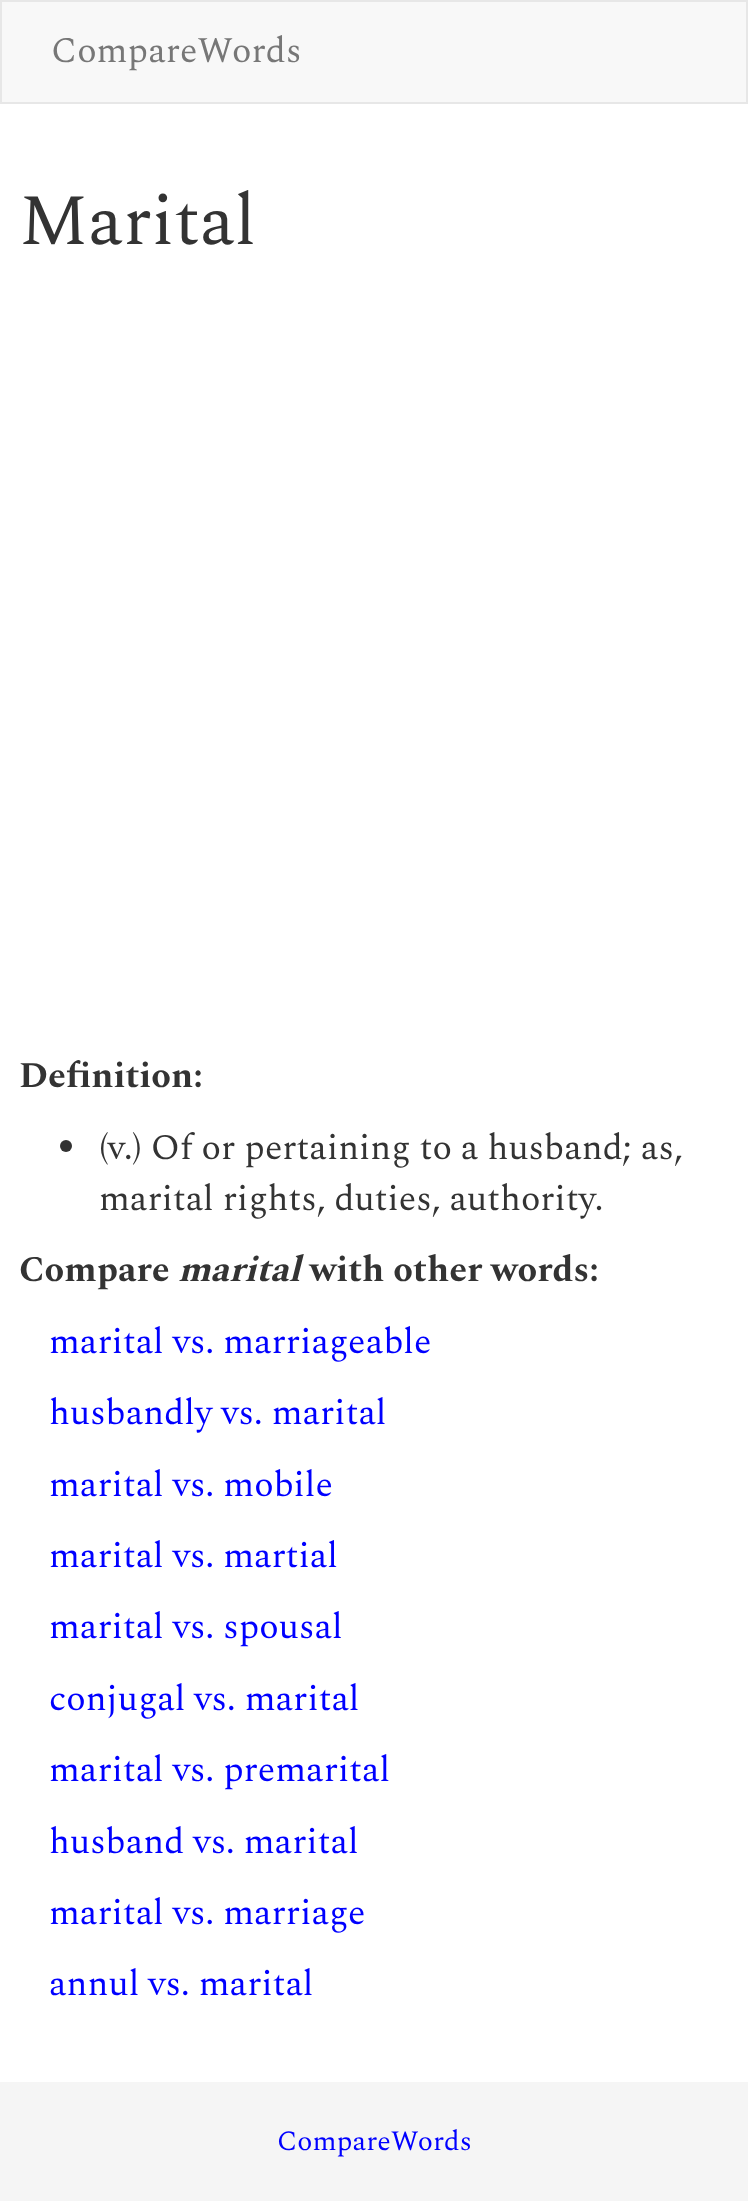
<?xml version="1.0" encoding="UTF-8"?>
<svg xmlns="http://www.w3.org/2000/svg" width="748" height="2201">
    <rect width="100%" height="100%" fill="#FFFFFF"/>
    <rect x="1" y="1" width="746" height="102" fill="#F8F8F8" stroke="#E7E7E7" stroke-width="2"/>
    <text x="51" y="62" font-family="Spectral" font-size="36" fill="#777777">CompareWords</text>
    <text x="19" y="244" font-family="Spectral" font-size="72" fill="#333333">Marital</text>
    <text x="19" y="1087" font-family="Spectral" font-size="36" font-weight="700" fill="#333333">Definition:</text>
    <circle cx="66" cy="1146" r="6" fill="#333333"/>
    <text font-family="Spectral" font-size="36" fill="#333333">
        <tspan x="99" y="1159">(v.) Of or pertaining to a husband; as,</tspan>
        <tspan x="99" y="1210">marital rights, duties, authority.</tspan>
    </text>
    <text x="19" y="1281" font-family="Spectral" font-size="36" font-weight="700" fill="#333333">Compare</text>
    <text x="178" y="1281" font-family="Spectral" font-size="36" font-weight="700" font-style="italic" fill="#333333">marital</text>
    <text x="310" y="1281" font-family="Spectral" font-size="36" font-weight="700" fill="#333333">with other words:</text>
    <text font-family="Spectral" font-size="36" fill="#0000FF">
        <tspan x="49" y="1353">marital vs. marriageable</tspan>
        <tspan x="49" y="1424">husbandly vs. marital</tspan>
    </text>
    <text font-family="Spectral" font-size="36" fill="#0000FF">
        <tspan x="49" y="1496">marital vs. mobile</tspan>
        <tspan x="49" y="1567">marital vs. martial</tspan>
        <tspan x="49" y="1638">marital vs. spousal</tspan>
    </text>
    <text font-family="Spectral" font-size="36" fill="#0000FF">
        <tspan x="49" y="1710">conjugal vs. marital</tspan>
        <tspan x="49" y="1781">marital vs. premarital</tspan>
    </text>
    <text font-family="Spectral" font-size="36" fill="#0000FF">
        <tspan x="49" y="1853">husband vs. marital</tspan>
        <tspan x="49" y="1924">marital vs. marriage</tspan>
        <tspan x="49" y="1995">annul vs. marital</tspan>
    </text>
    <rect x="0" y="2082" width="748" height="119" fill="#F5F5F5"/>
    <text x="277" y="2150" font-family="Spectral" font-size="28" fill="#0000FF">CompareWords</text>
</svg>
